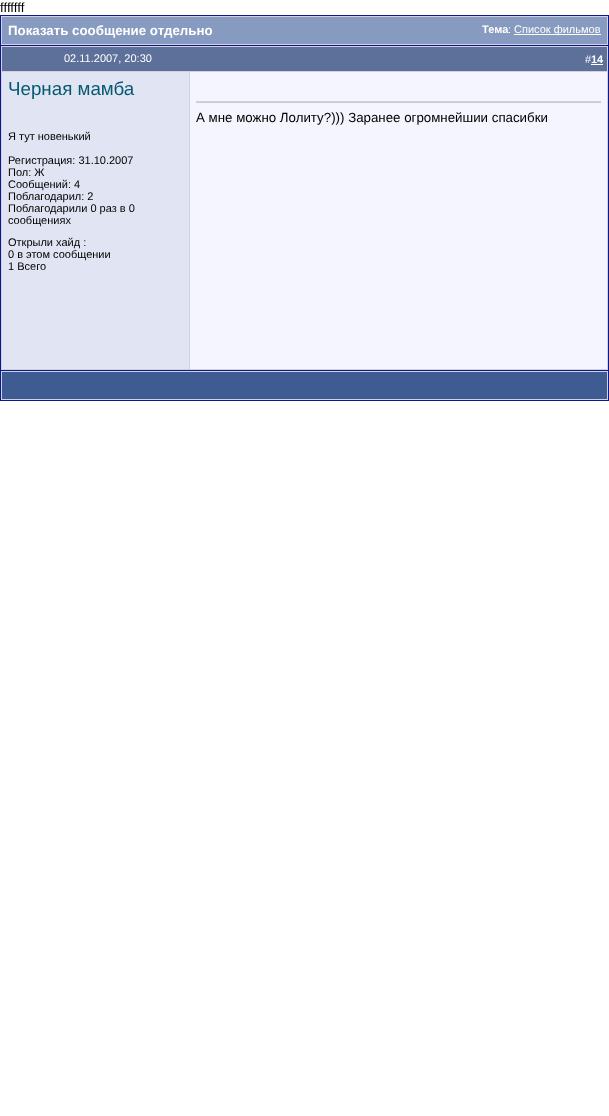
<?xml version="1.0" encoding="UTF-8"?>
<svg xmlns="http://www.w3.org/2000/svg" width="609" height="1116">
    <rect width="100%" height="100%" fill="#FFFFFF"/>
    <text x="0" y="12" font-family="Liberation Sans" font-size="13.3" fill="#000000">fffffff</text>
    <rect x="1" y="16" width="607" height="29" fill="#D1D1E1"/>
    <rect x="0" y="15" width="609" height="1" fill="#0B198C"/>
    <rect x="608" y="15" width="1" height="30" fill="#0B198C"/>
    <rect x="0" y="15" width="1" height="30" fill="#0B198C"/>
    <rect x="2" y="17" width="605" height="27" fill="#869BBF"/>
    <text x="8" y="35" font-family="Liberation Sans" font-size="13.3" font-weight="700" fill="#FFFFFF">Показать сообщение отдельно</text>
    <text x="482" y="33" font-family="Liberation Sans" font-size="11" font-weight="700" fill="#FFFFFF">Тема</text>
    <text x="508" y="33" font-family="Liberation Sans" font-size="11" fill="#FFFFFF">:</text>
    <rect x="514" y="34" width="87" height="1" fill="#FFFFFF"/>
    <text x="514" y="33" font-family="Liberation Sans" font-size="11" fill="#FFFFFF">Список фильмов</text>
    <rect x="0.5" y="45.5" width="608" height="325" fill="none" stroke="#0B198C"/>
    <rect x="2" y="47" width="605" height="24" fill="#5C7099"/>
    <rect x="1" y="46" width="607" height="1" fill="#D1D1E1"/>
    <rect x="1" y="71" width="189" height="1" fill="#D1D1E1"/>
    <rect x="1" y="46" width="1" height="266" fill="#D1D1E1"/>
    <text x="64" y="62" font-family="Liberation Sans" font-size="11" fill="#FFFFFF">02.11.2007, 20:30</text>
    <rect x="607" y="46" width="1" height="324" fill="#D1D1E1"/>
    <rect x="190" y="71" width="418" height="1" fill="#D1D1E1"/>
    <text x="585" y="63" font-family="Liberation Sans" font-size="11" fill="#FFFFFF">#</text>
    <text x="591" y="63" font-family="Liberation Sans" font-size="11" font-weight="700" fill="#FFFFFF">14</text>
    <rect x="591" y="64" width="12" height="1" fill="#FFFFFF"/>
    <rect x="2" y="72" width="187" height="297" fill="#E1E4F2"/>
    <rect x="189" y="72" width="1" height="298" fill="#D1D1E1"/>
    <text x="8" y="95" font-family="Liberation Sans" font-size="18.75" fill="#055970">Черная мамба</text>
    <text x="8" y="140" font-family="Liberation Sans" font-size="11" fill="#000000">Я тут новенький</text>
    <text font-family="Liberation Sans" font-size="11" fill="#000000">
        <tspan x="8" y="164">Регистрация: 31.10.2007</tspan>
        <tspan x="8" y="176">Пол: Ж</tspan>
        <tspan x="8" y="188">Сообщений: 4</tspan>
        <tspan x="8" y="200">Поблагодарил: 2</tspan>
        <tspan x="8" y="212">Поблагодарили 0 раз в 0</tspan>
        <tspan x="8" y="224">сообщениях</tspan>
    </text>
    <text font-family="Liberation Sans" font-size="11" fill="#000000">
        <tspan x="8" y="246">Открыли хайд :</tspan>
        <tspan x="8" y="258">0 в этом сообщении</tspan>
        <tspan x="8" y="270">1 Всего</tspan>
    </text>
    <rect x="190" y="72" width="417" height="297" fill="#F5F5FF"/>
    <rect x="196" y="101" width="405" height="1" fill="#D1D1E1"/>
    <rect x="196" y="102" width="405" height="1" fill="#CCCCCC"/>
    <text x="196" y="122" font-family="Liberation Sans" font-size="13.3" fill="#000000">А мне можно Лолиту?))) Заранее огромнейшии спасибки</text>
    <rect x="1" y="369" width="607" height="1" fill="#D1D1E1"/>
    <rect x="1" y="312" width="1" height="58" fill="#D1D1E1"/>
    <rect x="1" y="371" width="607" height="29" fill="#D1D1E1"/>
    <rect x="608" y="371" width="1" height="30" fill="#0B198C"/>
    <rect x="0" y="400" width="609" height="1" fill="#0B198C"/>
    <rect x="0" y="371" width="1" height="30" fill="#0B198C"/>
    <rect x="2" y="372" width="605" height="27" fill="#3E5C92"/>
</svg>
